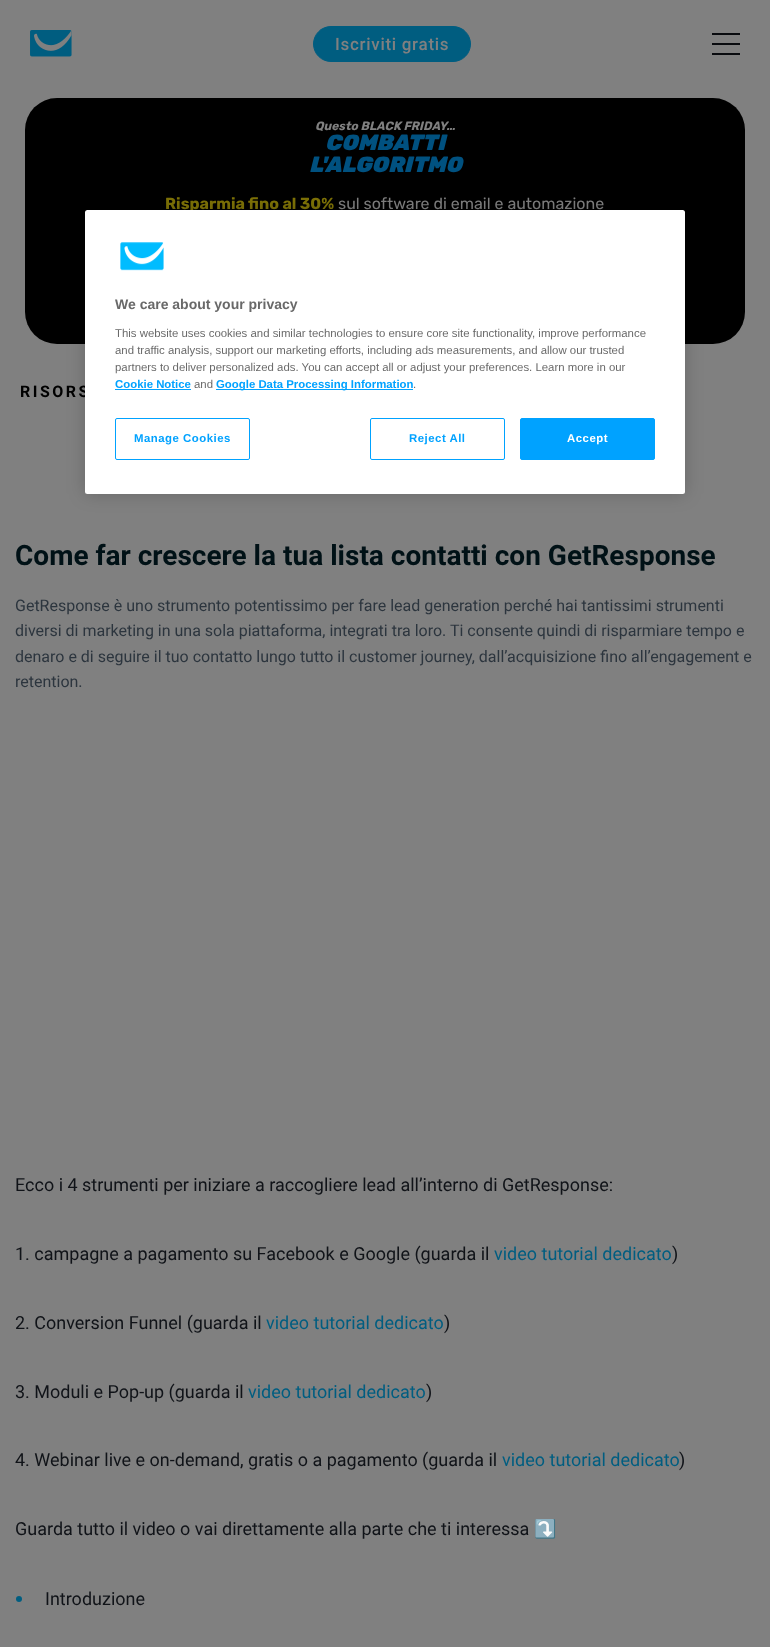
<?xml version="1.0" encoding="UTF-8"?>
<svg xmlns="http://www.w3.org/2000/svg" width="770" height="1647">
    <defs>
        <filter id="blur1" x="-50%" y="-200%" width="200%" height="500%"><feGaussianBlur stdDeviation="9"/></filter>
    </defs>
    <rect width="100%" height="100%" fill="#808080"/>
    <image x="30" y="30" width="42" height="27" href="img_01.png"/>
    <rect x="313.5" y="26.5" width="157" height="35" rx="17.5" fill="#005D80" stroke="#005D80"/>
    <text x="335" y="50" font-family="Roboto" font-size="17" font-weight="500" letter-spacing="0.7" fill="#808080">Iscriviti gratis</text>
    <rect x="712" y="53" width="28" height="2" fill="#090B0F"/>
    <rect x="712" y="43" width="28" height="2" fill="#090B0F"/>
    <rect x="712" y="33" width="28" height="2" fill="#090B0F"/>
    <rect x="25" y="98" width="720" height="246" rx="32" fill="#000000"/>
    <text x="315" y="130" font-family="Rubik" font-size="12" font-weight="700" font-style="italic" fill="#808080">Questo BLACK FRIDAY…</text>
    <text x="325" y="150" font-family="Rubik" font-size="22" font-weight="900" font-style="italic" fill="#005180">COMBATTI</text>
    <text x="309" y="172" font-family="Rubik" font-size="22" font-weight="900" font-style="italic" fill="#005180">L'ALGORITMO</text>
    <text x="165" y="209" font-family="Rubik" font-size="16" font-weight="700" fill="#7E7206">Risparmia fino al 30%</text>
    <text x="338" y="209" font-family="Rubik" font-size="16" fill="#808080">sul software di email e automazione</text>
    <text x="20" y="397" font-family="Roboto" font-size="16" font-weight="700" letter-spacing="2.5" fill="#000000">RISORS</text>
    <rect x="85" y="210" width="600" height="284" rx="2.5" fill="#000000" fill-opacity="0.2" filter="url(#blur1)"/>
    <rect x="85" y="210" width="600" height="284" rx="2.5" fill="#FFFFFF"/>
    <image x="120" y="242" width="44" height="29" href="img_02.png"/>
    <text x="115" y="309" font-family="Liberation Sans" font-size="14" font-weight="700" fill="#696969">We care about your privacy</text>
    <text font-family="Liberation Sans" font-size="11.4" fill="#696969">
        <tspan x="115" y="337">This website uses cookies and similar technologies to ensure core site functionality, improve performance</tspan>
        <tspan x="115" y="354">and traffic analysis, support our marketing efforts, including ads measurements, and allow our trusted</tspan>
        <tspan x="115" y="371">partners to deliver personalized ads. You can accept all or adjust your preferences. Learn more in our</tspan>
    </text>
    <text x="115" y="388" font-family="Liberation Sans" font-size="11.4" font-weight="700" fill="#00A2FF">Cookie Notice</text>
    <rect x="115" y="389" width="76" height="1" fill="#00A2FF"/>
    <text x="194" y="388" font-family="Liberation Sans" font-size="11.4" fill="#696969">and</text>
    <rect x="216" y="389" width="197" height="1" fill="#00A2FF"/>
    <text x="216" y="388" font-family="Liberation Sans" font-size="11.4" font-weight="700" fill="#00A2FF">Google Data Processing Information</text>
    <text x="413" y="388" font-family="Liberation Sans" font-size="11.4" fill="#696969">.</text>
    <rect x="115.5" y="418.5" width="134" height="41" rx="1.5" fill="none" stroke="#00A2FF"/>
    <text x="134" y="442" font-family="Liberation Sans" font-size="11.4" font-weight="700" letter-spacing="0.5" fill="#00A2FF">Manage Cookies</text>
    <rect x="370.5" y="418.5" width="134" height="41" rx="1.5" fill="none" stroke="#00A2FF"/>
    <text x="409" y="442" font-family="Liberation Sans" font-size="11.4" font-weight="700" letter-spacing="0.5" fill="#00A2FF">Reject All</text>
    <rect x="520.5" y="418.5" width="134" height="41" rx="1.5" fill="#00A2FF" stroke="#00A2FF"/>
    <text x="567" y="442" font-family="Liberation Sans" font-size="11.4" font-weight="700" letter-spacing="0.5" fill="#FFFFFF">Accept</text>
    <text x="15" y="565" font-family="Roboto" font-size="28" font-weight="700" fill="#001116">Come far crescere la tua lista contatti con GetResponse</text>
    <text font-family="Roboto" font-size="16" fill="#2C353E">
        <tspan x="15" y="611">GetResponse è uno strumento potentissimo per fare lead generation perché hai tantissimi strumenti</tspan>
        <tspan x="15" y="636">diversi di marketing in una sola piattaforma, integrati tra loro. Ti consente quindi di risparmiare tempo e</tspan>
        <tspan x="15" y="662">denaro e di seguire il tuo contatto lungo tutto il customer journey, dall’acquisizione fino all’engagement e</tspan>
        <tspan x="15" y="687">retention.</tspan>
    </text>
    <text x="15" y="1191" font-family="Roboto" font-size="18" fill="#101318">Ecco i 4 strumenti per iniziare a raccogliere lead all’interno di GetResponse:</text>
    <text x="15" y="1260" font-family="Roboto" font-size="18" fill="#101318">1. campagne a pagamento su Facebook e Google (guarda il</text>
    <text x="494" y="1260" font-family="Roboto" font-size="18" fill="#005D80">video tutorial dedicato</text>
    <text x="672" y="1260" font-family="Roboto" font-size="18" fill="#101318">)</text>
    <text x="15" y="1329" font-family="Roboto" font-size="18" fill="#101318">2. Conversion Funnel (guarda il</text>
    <text x="266" y="1329" font-family="Roboto" font-size="18" fill="#005D80">video tutorial dedicato</text>
    <text x="444" y="1329" font-family="Roboto" font-size="18" fill="#101318">)</text>
    <text x="15" y="1398" font-family="Roboto" font-size="18" fill="#101318">3. Moduli e Pop-up (guarda il</text>
    <text x="248" y="1398" font-family="Roboto" font-size="18" fill="#005D80">video tutorial dedicato</text>
    <text x="426" y="1398" font-family="Roboto" font-size="18" fill="#101318">)</text>
    <text x="15" y="1466" font-family="Roboto" font-size="18" fill="#101318">4. Webinar live e on-demand, gratis o a pagamento (guarda il</text>
    <text x="502" y="1466" font-family="Roboto" font-size="18" fill="#005D80">video tutorial dedicato</text>
    <text x="679" y="1466" font-family="Roboto" font-size="18" fill="#101318">)</text>
    <text x="15" y="1535" font-family="Roboto" font-size="18" fill="#101318">Guarda tutto il video o vai direttamente alla parte che ti interessa</text>
    <text x="534" y="1535" font-family="Noto Color Emoji" font-size="18" fill="#101318">⤵️</text>
    <circle cx="19" cy="1599" r="3" fill="#005D80"/>
    <text x="45" y="1605" font-family="Roboto" font-size="18" fill="#101318">Introduzione</text>
</svg>
